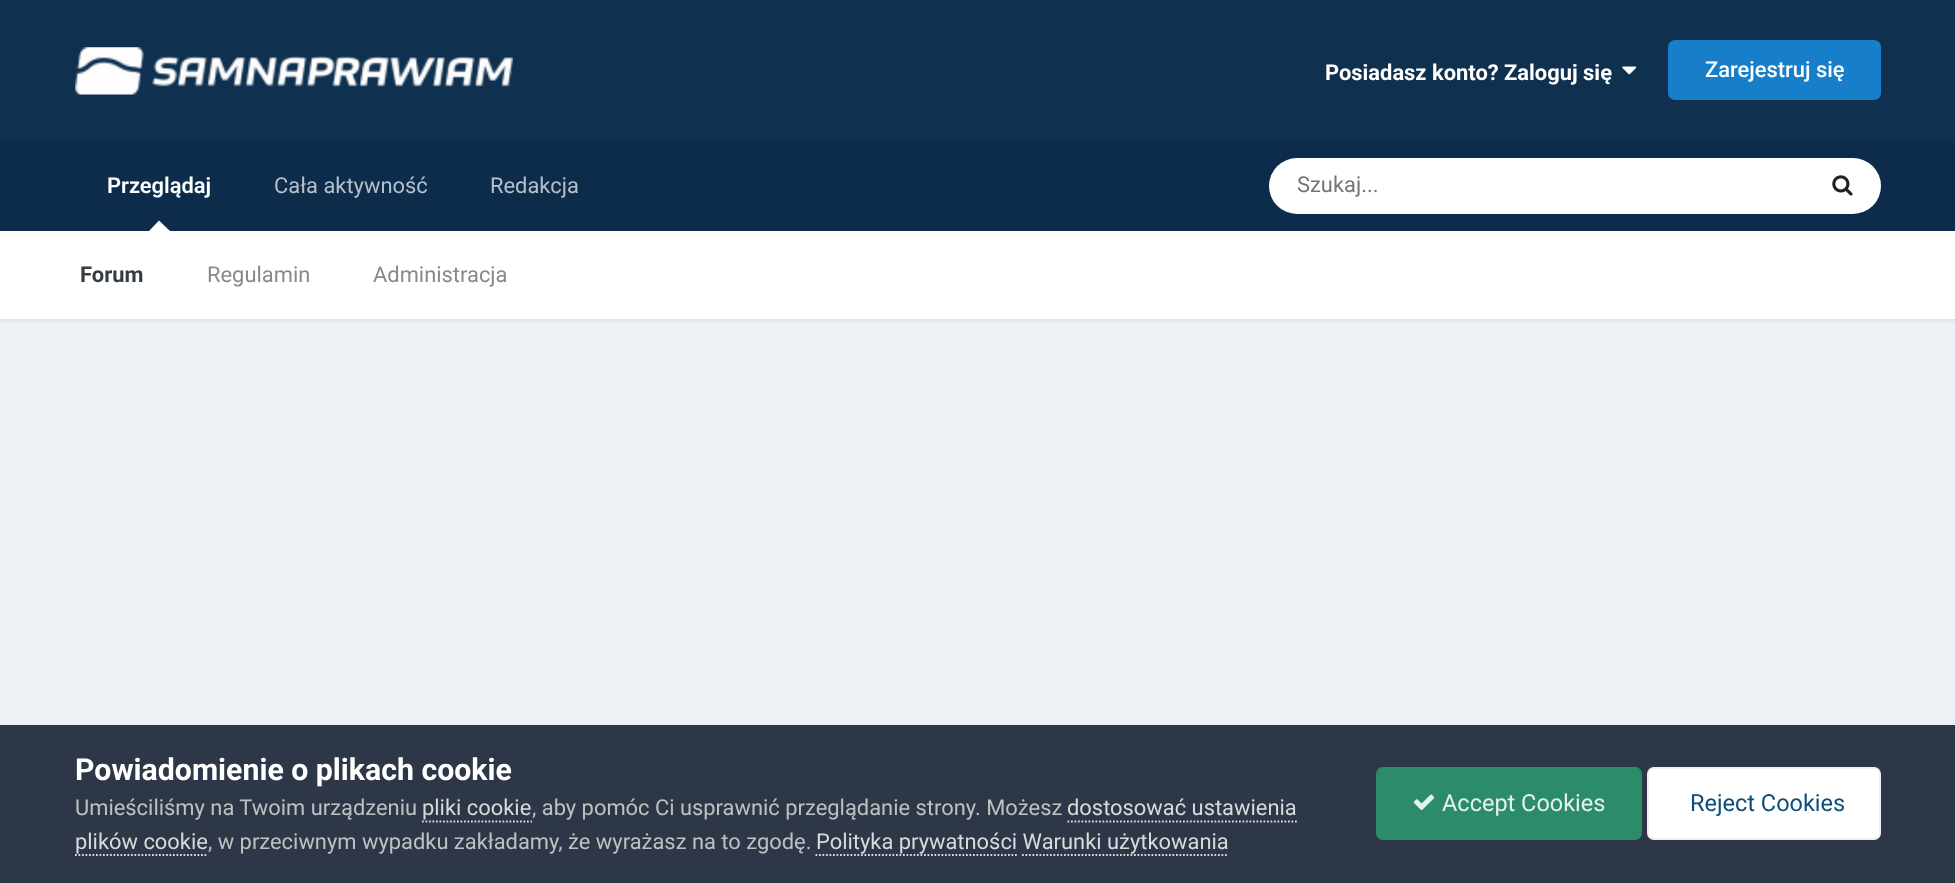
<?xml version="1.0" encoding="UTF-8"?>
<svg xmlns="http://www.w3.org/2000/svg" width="1955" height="883">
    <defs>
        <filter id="blur1" x="-50%" y="-200%" width="200%" height="500%"><feGaussianBlur stdDeviation="2"/></filter>
    </defs>
    <rect width="100%" height="100%" fill="#EDF0F4"/>
    <rect x="0" y="0" width="1955" height="140" fill="#103050"/>
    <image x="75" y="47" width="438" height="48" href="img_01.png"/>
    <text x="1325" y="80" font-family="Roboto" font-size="21.9" font-weight="700" fill="#FFFFFF">Posiadasz konto? Zaloguj się</text>
    <image x="1622" y="66" width="15" height="9" href="img_02.png"/>
    <rect x="1668" y="40" width="213" height="60" rx="7" fill="#177EC9"/>
    <text x="1705" y="77" font-family="Roboto" font-size="21.9" font-weight="500" fill="#FFFFFF">Zarejestruj się</text>
    <rect x="0" y="140" width="1955" height="91" fill="#0D2C4B"/>
    <text x="107" y="193" font-family="Roboto" font-size="21.9" font-weight="600" fill="#FFFFFF">Przeglądaj</text>
    <rect x="0" y="233" width="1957" height="87" fill="#000000" fill-opacity="0.1" filter="url(#blur1)"/>
    <path d="M 170 231 H 149 L 159 220.5 Z" fill="#FFFFFF"/>
    <rect x="0" y="231" width="1955" height="88" fill="#FFFFFF"/>
    <text x="80" y="282" font-family="Roboto" font-size="21.9" font-weight="700" fill="#353C41">Forum</text>
    <text x="207" y="282" font-family="Roboto" font-size="21.9" fill="#868A8D">Regulamin</text>
    <text x="373" y="282" font-family="Roboto" font-size="21.9" fill="#868A8D">Administracja</text>
    <text x="274" y="193" font-family="Roboto" font-size="21.9" fill="#B6C0C9">Cała aktywność</text>
    <text x="490" y="193" font-family="Roboto" font-size="21.9" fill="#B6C0C9">Redakcja</text>
    <rect x="1269" y="158" width="612" height="56" rx="28" fill="#FFFFFF"/>
    <text x="1297" y="192" font-family="Roboto" font-size="21.9" fill="#757575">Szukaj...</text>
    <image x="1832" y="175" width="21" height="21" href="img_03.png"/>
    <rect x="0" y="725" width="1955" height="158" fill="#2D3748"/>
    <text x="75" y="780" font-family="Roboto" font-size="30.25" font-weight="700" fill="#FFFFFF">Powiadomienie o plikach cookie</text>
    <text x="75" y="815" font-family="Roboto" font-size="21.9" fill="#C0C0C0">Umieściliśmy na Twoim urządzeniu</text>
    <text x="422" y="815" font-family="Roboto" font-size="21.9" fill="#DADADA">pliki cookie</text>
    <path d="M 422 821.5 H 532" fill="none" stroke="#DADADA" stroke-width="1.8" stroke-dasharray="1.75 1.75"/>
    <text x="532" y="815" font-family="Roboto" font-size="21.9" fill="#C0C0C0">, aby pomóc Ci usprawnić przeglądanie strony. Możesz</text>
    <text x="1067" y="815" font-family="Roboto" font-size="21.9" fill="#DADADA">dostosować ustawienia</text>
    <path d="M 1067.5 821.5 H 1297" fill="none" stroke="#DADADA" stroke-width="1.8" stroke-dasharray="1.75 1.75"/>
    <text x="75" y="849" font-family="Roboto" font-size="21.9" fill="#DADADA">plików cookie</text>
    <path d="M 75 855 H 208" fill="none" stroke="#DADADA" stroke-width="1.8" stroke-dasharray="1.75 1.75"/>
    <text x="208" y="849" font-family="Roboto" font-size="21.9" fill="#C0C0C0">, w przeciwnym wypadku zakładamy, że wyrażasz na to zgodę.</text>
    <text x="816" y="849" font-family="Roboto" font-size="21.9" fill="#DADADA">Polityka prywatności Warunki użytkowania</text>
    <path d="M 815.5 855 H 1017" fill="none" stroke="#DADADA" stroke-width="1.8" stroke-dasharray="1.75 1.75"/>
    <path d="M 1022 855 H 1228.5" fill="none" stroke="#DADADA" stroke-width="1.8" stroke-dasharray="1.75 1.75"/>
    <rect x="1376" y="767" width="266" height="73" rx="7" fill="#2C8C69"/>
    <image x="1413" y="794" width="22" height="17" href="img_04.png"/>
    <text x="1442" y="811" font-family="Roboto" font-size="23.5" fill="#E3F3EC">Accept Cookies</text>
    <rect x="1647" y="767" width="234" height="73" rx="7" fill="#FFFFFF"/>
    <rect x="1648" y="768" width="232" height="71" rx="6" fill="none" stroke="#0E4C79" stroke-opacity="0.07" stroke-width="2"/>
    <text x="1690" y="811" font-family="Roboto" font-size="23.5" fill="#0E4C79">Reject Cookies</text>
</svg>
